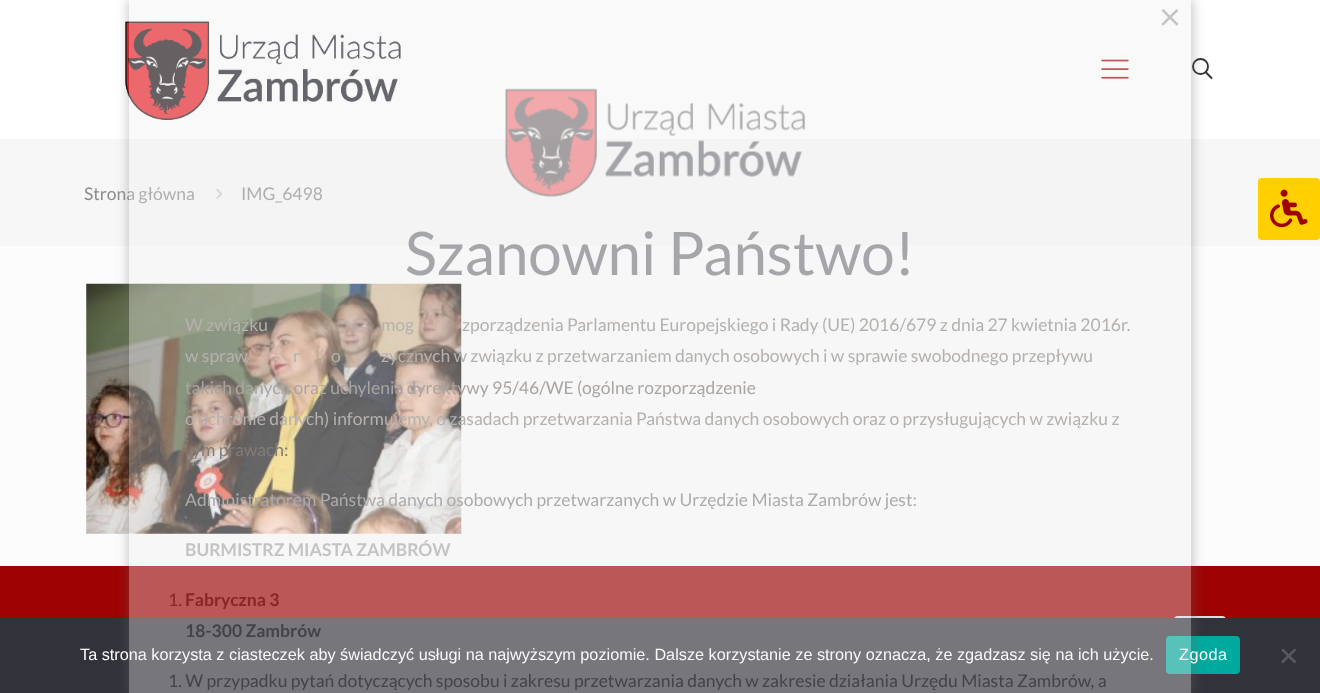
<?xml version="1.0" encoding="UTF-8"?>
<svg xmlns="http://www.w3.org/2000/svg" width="1320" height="693">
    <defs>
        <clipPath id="clip1"><path d="M 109 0 H 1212 V 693 H 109 Z M 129 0 H 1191 V 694 H 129 Z" clip-rule="evenodd"/></clipPath>
        <filter id="blur1" x="-50%" y="-200%" width="200%" height="500%"><feGaussianBlur stdDeviation="6"/></filter>
    </defs>
    <rect width="100%" height="100%" fill="#FCFCFC"/>
    <rect x="0" y="0" width="1320" height="139" fill="#FFFFFF"/>
    <image x="125" y="21" width="276" height="99" href="img_03.png"/>
    <image x="1101" y="59" width="28" height="20" href="img_04.png"/>
    <circle cx="1200.5" cy="66.5" r="7.5" fill="none" stroke="#333333" stroke-width="1.9"/>
    <path d="M 1205.5 72 L 1212 78.5" fill="none" stroke="#333333" stroke-width="1.9"/>
    <rect x="0" y="139" width="1320" height="107" fill="#F7F7F7"/>
    <image x="216" y="188" width="7" height="11" href="img_05.png"/>
    <image x="86" y="283" width="376" height="251" href="img_06.png"/>
    <rect x="0" y="566" width="1320" height="52" fill="#9E0202"/>
    <rect x="1174" y="616" width="52" height="53" rx="4" fill="#DBDDDF"/>
    <rect x="0" y="618" width="1320" height="75" fill="#32323A"/>
    <rect x="1166" y="636" width="74" height="38" rx="4" fill="#00A99D"/>
    <g clip-path="url(#clip1)">
        <rect x="128" y="-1" width="1065" height="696" fill="#666666" fill-opacity="0.36" filter="url(#blur1)"/>
    </g>
    <text x="84" y="200" font-family="Lato" font-size="17.5" fill="#8C8C8C">Strona główna</text>
    <text x="241" y="200" font-family="Lato" font-size="17.5" fill="#8C8C8C">IMG_6498</text>
    <text x="80" y="660" font-family="Liberation Sans" font-size="16.25" fill="#FFFFFF">Ta strona korzysta z ciasteczek aby świadczyć usługi na najwyższym poziomie. Dalsze korzystanie ze strony oznacza, że zgadzasz się na ich użycie.</text>
    <text x="1179" y="660" font-family="Liberation Sans" font-size="16.25" letter-spacing="0.5" fill="#FFFFFF">Zgoda</text>
    <rect x="129" y="0" width="1062" height="693" fill="#EEEEEE" fill-opacity="0.36"/>
    <text x="1159" y="30" font-family="Lato" font-size="38" fill="#C4C4C4">×</text>
    <image x="505" y="88" width="300" height="109" href="img_01.png"/>
    <text x="405" y="275" font-family="Lato" font-size="60" fill="#A5A6A9">Szanowni Państwo!</text>
    <text x="185" y="331" font-family="Lato" font-size="17.5" fill="#B4B1AE">W związku</text>
    <text x="381" y="331" font-family="Lato" font-size="17.5" fill="#B4B1AE">mog</text>
    <text x="462" y="331" font-family="Lato" font-size="17.5" fill="#B4B1AE">zporządzenia Parlamentu Europejskiego i Rady (UE) 2016/679 z dnia 27 kwietnia 2016r.</text>
    <text x="185" y="362" font-family="Lato" font-size="17.5" fill="#B4B1AE">w spraw</text>
    <text x="293" y="362" font-family="Lato" font-size="17.5" fill="#B4B1AE">r</text>
    <text x="331" y="362" font-family="Lato" font-size="17.5" fill="#B4B1AE">o</text>
    <text x="381" y="362" font-family="Lato" font-size="17.5" fill="#B4B1AE">zycznych w związku z przetwarzaniem danych osobowych i w sprawie swobodnego przepływu</text>
    <text x="185" y="394" font-family="Lato" font-size="17.5" fill="#A9A5A2">takich danych oraz uchylenia dyrektywy 95/46/WE (ogólne rozporządzenie</text>
    <text x="185" y="425" font-family="Lato" font-size="17.5" fill="#B4B1AE">o ochronie danych) informujemy, o zasadach przetwarzania Państwa danych osobowych oraz o przysługujących w związku z</text>
    <text x="192" y="456" font-family="Lato" font-size="17.5" fill="#827C75">ym prawach:</text>
    <text x="185" y="506" font-family="Lato" font-size="17.5" fill="#ADABAB">Administratorem Państwa danych osobowych przetwarzanych w Urzędzie Miasta Zambrów jest:</text>
    <text x="185" y="556" font-family="Lato" font-size="17.5" font-weight="700" fill="#C4C4C4">BURMISTRZ MIASTA ZAMBRÓW</text>
    <text x="168" y="606" font-family="Lato" font-size="17.5" fill="#882525">1.</text>
    <text x="185" y="606" font-family="Lato" font-size="17.5" font-weight="700" fill="#882525">Fabryczna 3</text>
    <text x="185" y="637" font-family="Lato" font-size="17.5" font-weight="700" fill="#434349">18-300 Zambrów</text>
    <text x="168" y="687" font-family="Lato" font-size="17.5" fill="#434349">1. W przypadku pytań dotyczących sposobu i zakresu przetwarzania danych w zakresie działania Urzędu Miasta Zambrów, a</text>
    <rect x="1258" y="178" width="62" height="62" rx="4" fill="#FFCF00"/>
    <image x="1270" y="189" width="38" height="39" href="img_02.png"/>
    <path d="M 1294.5 648.5 L 1296.5 650 L 1283 663.5 L 1281 661.5 Z" fill="#59595D"/>
    <path d="M 1281 650 L 1283 648.5 L 1296.5 661.5 L 1294.5 663.5 Z" fill="#59595D"/>
</svg>
